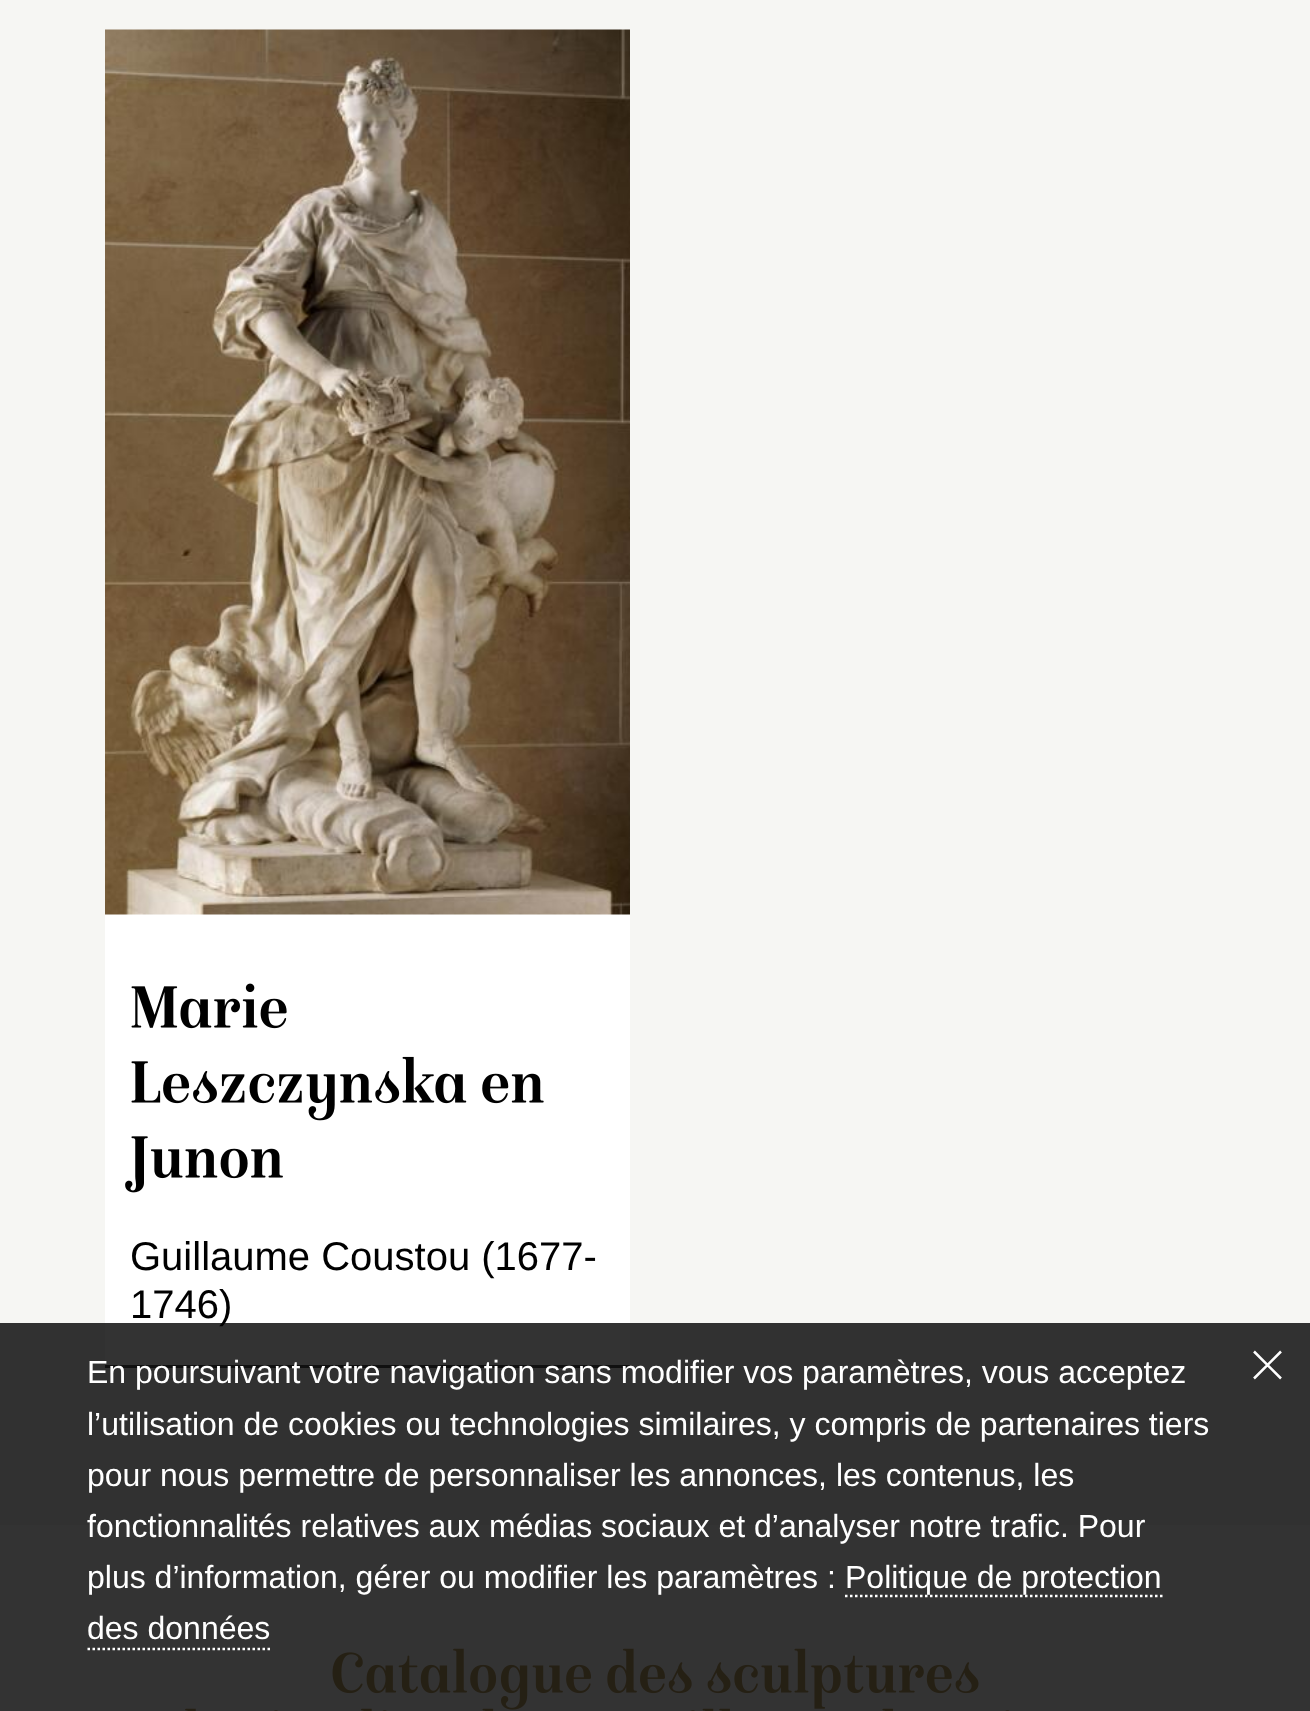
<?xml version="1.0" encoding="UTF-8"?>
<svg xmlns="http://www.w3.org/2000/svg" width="1310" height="1711">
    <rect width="100%" height="100%" fill="#F6F6F3"/>
    <rect x="105" y="914" width="525" height="451" fill="#FFFFFF"/>
    <rect x="105" y="1365" width="525" height="3" fill="#50504F"/>
    <image x="105" y="29" width="525" height="886" href="img_01.png"/>
    <image x="131" y="983" width="156" height="46" href="img_02.png"/>
    <image x="131" y="1056" width="413" height="65" href="img_03.png"/>
    <image x="125" y="1136" width="158" height="57" href="img_04.png"/>
    <text font-family="Liberation Sans" font-size="40" fill="#000000">
        <tspan x="130" y="1270">Guillaume Coustou (1677-</tspan>
        <tspan x="130" y="1318">1746)</tspan>
    </text>
    <rect x="0" y="1525" width="1310" height="186" fill="#FFFFFF"/>
    <image x="332" y="1648" width="647" height="62" href="img_05.png"/>
    <image x="185" y="1708" width="825" height="3" href="img_06.png"/>
    <rect x="0" y="1323" width="1310" height="388" fill="#000000" fill-opacity="0.8"/>
    <text font-family="Liberation Sans" font-size="32" fill="#FFFFFF">
        <tspan x="87" y="1383">En poursuivant votre navigation sans modifier vos paramètres, vous acceptez</tspan>
        <tspan x="87" y="1435">l’utilisation de cookies ou technologies similaires, y compris de partenaires tiers</tspan>
        <tspan x="87" y="1486">pour nous permettre de personnaliser les annonces, les contenus, les</tspan>
        <tspan x="87" y="1537">fonctionnalités relatives aux médias sociaux et d’analyser notre trafic. Pour</tspan>
        <tspan x="87" y="1588">plus d’information, gérer ou modifier les paramètres :</tspan>
    </text>
    <path d="M 845 1596 H 1162.5" fill="none" stroke="#FFFFFF" stroke-width="2.5" stroke-dasharray="2.5 2.5"/>
    <text x="845" y="1588" font-family="Liberation Sans" font-size="32" fill="#FFFFFF">Politique de protection</text>
    <text x="87" y="1639" font-family="Liberation Sans" font-size="32" fill="#FFFFFF">des données</text>
    <path d="M 87.5 1649 H 270" fill="none" stroke="#FFFFFF" stroke-width="2.5" stroke-dasharray="2.5 2.5"/>
    <path d="M 1254 1351.5 L 1281 1378.5 M 1254 1378.5 L 1281 1351.5" fill="none" stroke="#FFFFFF" stroke-width="2.5"/>
</svg>
